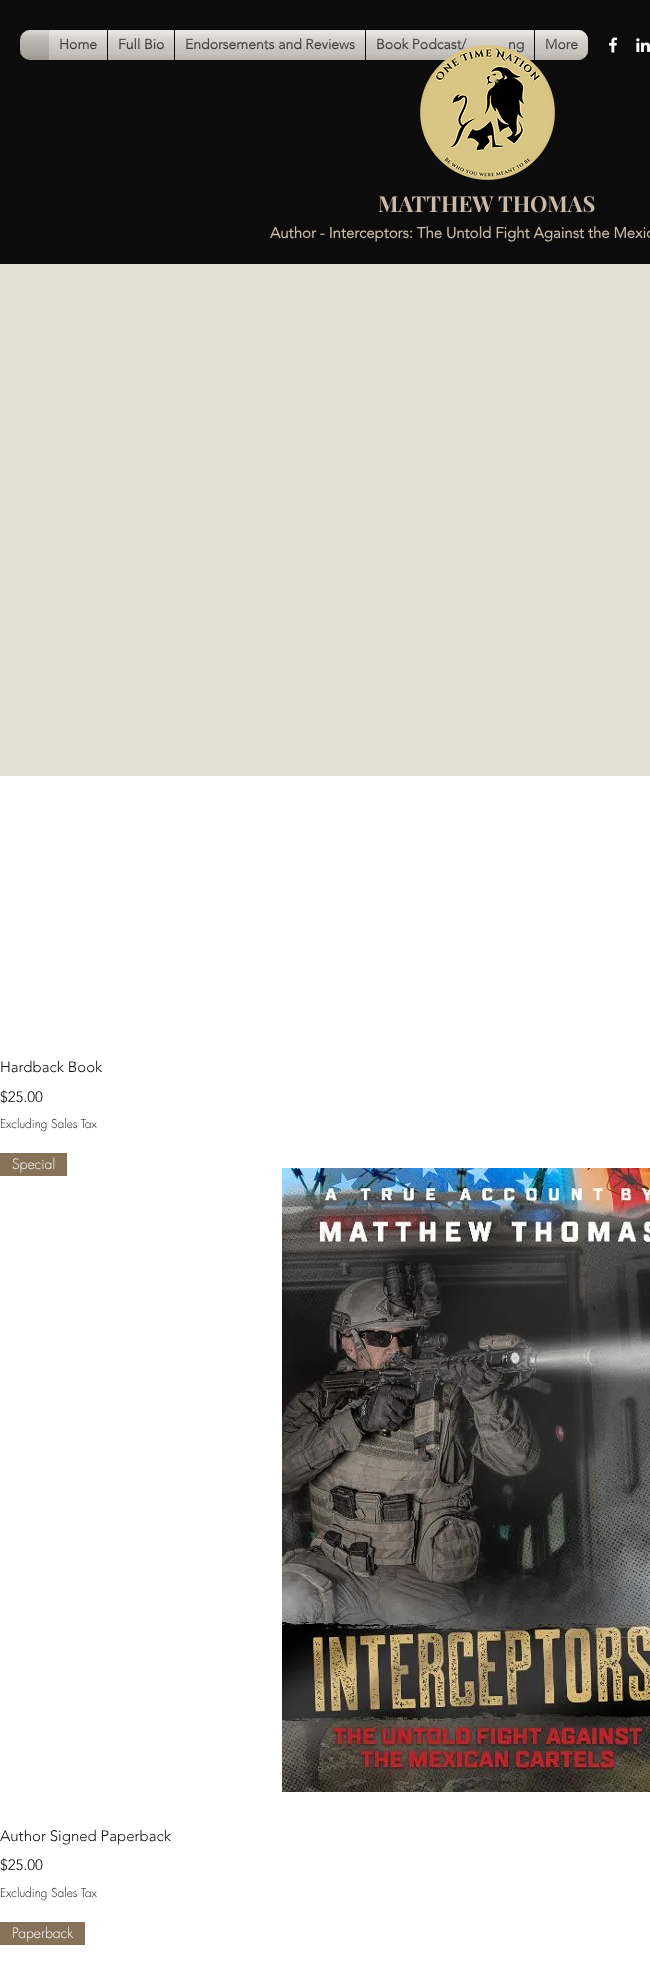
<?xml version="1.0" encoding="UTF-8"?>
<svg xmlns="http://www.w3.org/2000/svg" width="650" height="1984">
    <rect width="100%" height="100%" fill="#FFFFFF"/>
    <rect x="0" y="0" width="650" height="264" fill="#0D0C0C"/>
    <rect x="20" y="30" width="568" height="30" rx="10" fill="#B0ABA3"/>
    <image x="20" y="30" width="568" height="30" href="img_01.png"/>
    <image x="20" y="30" width="568" height="30" href="img_02.png"/>
    <rect x="49" y="30" width="58" height="30" fill="#E3DDD3" fill-opacity="0.76"/>
    <text x="59" y="49" font-family="'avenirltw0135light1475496'" font-size="14" font-weight="700" fill="#0D0C0C">Home</text>
    <image x="49" y="30" width="58" height="30" href="img_03.png"/>
    <image x="49" y="30" width="58" height="30" href="img_04.png"/>
    <rect x="108" y="30" width="66" height="30" fill="#E3DDD3" fill-opacity="0.76"/>
    <rect x="107" y="30" width="1" height="30" fill="#0D0C0C"/>
    <text x="118" y="49" font-family="'avenirltw0135light1475496'" font-size="14" font-weight="700" fill="#0D0C0C">Full Bio</text>
    <image x="108" y="30" width="66" height="30" href="img_05.png"/>
    <image x="108" y="30" width="66" height="30" href="img_06.png"/>
    <rect x="175" y="30" width="190" height="30" fill="#E3DDD3" fill-opacity="0.76"/>
    <rect x="174" y="30" width="1" height="30" fill="#0D0C0C"/>
    <text x="185" y="49" font-family="'avenirltw0135light1475496'" font-size="14" font-weight="700" fill="#0D0C0C">Endorsements and Reviews</text>
    <image x="175" y="30" width="190" height="30" href="img_07.png"/>
    <image x="175" y="30" width="190" height="30" href="img_08.png"/>
    <rect x="366" y="30" width="168" height="30" fill="#E3DDD3" fill-opacity="0.76"/>
    <rect x="365" y="30" width="1" height="30" fill="#0D0C0C"/>
    <text x="376" y="49" font-family="'avenirltw0135light1475496'" font-size="14" font-weight="700" fill="#0D0C0C">Book Podcast/</text>
    <text x="508" y="49" font-family="'avenirltw0135light1475496'" font-size="14" font-weight="700" fill="#0D0C0C">ng</text>
    <image x="366" y="30" width="168" height="30" href="img_09.png"/>
    <image x="366" y="30" width="168" height="30" href="img_10.png"/>
    <path d="M 534 30 H 578 C 583.5 30 588 34.5 588 40 V 50 C 588 55.5 583.5 60 578 60 H 534 Z" fill="#E3DDD3" fill-opacity="0.76"/>
    <rect x="534" y="30" width="1" height="30" fill="#0D0C0C"/>
    <text x="545" y="49" font-family="'avenirltw0135light1475496'" font-size="14" font-weight="700" fill="#0D0C0C">More</text>
    <image x="535" y="30" width="53" height="30" href="img_11.png"/>
    <image x="535" y="30" width="53" height="30" href="img_12.png"/>
    <image x="609" y="37" width="9" height="16" href="img_13.png"/>
    <image x="636" y="38" width="14" height="15" href="img_14.png"/>
    <image x="420" y="45" width="136" height="136" href="img_15.png"/>
    <text x="378" y="212" font-family="Playfair Display" font-size="22" font-weight="700" fill="#C8BAA6">MATTHEW THOMAS</text>
    <text x="270" y="238" font-family="'avenirltw0135light1475496'" font-size="15" font-weight="700" fill="#C8BAA6">Author - Interceptors: The Untold Fight Against the Mexic</text>
    <rect x="0" y="264" width="650" height="512" fill="#E3DDD3"/>
    <text x="0" y="1072" font-family="'avenirltw0135light1475496'" font-size="15" font-weight="300" fill="#0D0C0C">Hardback Book</text>
    <text x="0" y="1102" font-family="'avenirltw0135light1475496'" font-size="15" font-weight="300" fill="#0D0C0C">$25.00</text>
    <text x="0" y="1128" font-family="futura" font-size="12" font-weight="300" fill="#0D0C0C">Excluding Sales Tax</text>
    <rect x="0" y="1153" width="67" height="23" fill="#887159"/>
    <text x="12" y="1169" font-family="futura" font-size="14" font-weight="300" fill="#FFFFFF">Special</text>
    <image x="282" y="1168" width="368" height="624" href="img_16.png"/>
    <text font-family="'avenirltw0135light1475496'" font-size="15" font-weight="300" fill="#0D0C0C">
        <tspan x="0" y="1841">Author Signed Paperback</tspan>
        <tspan x="0" y="1870">$25.00</tspan>
    </text>
    <text x="0" y="1897" font-family="futura" font-size="12" font-weight="300" fill="#0D0C0C">Excluding Sales Tax</text>
    <rect x="0" y="1922" width="85" height="23" fill="#887159"/>
    <text x="12" y="1938" font-family="futura" font-size="14" font-weight="300" fill="#FFFFFF">Paperback</text>
</svg>
